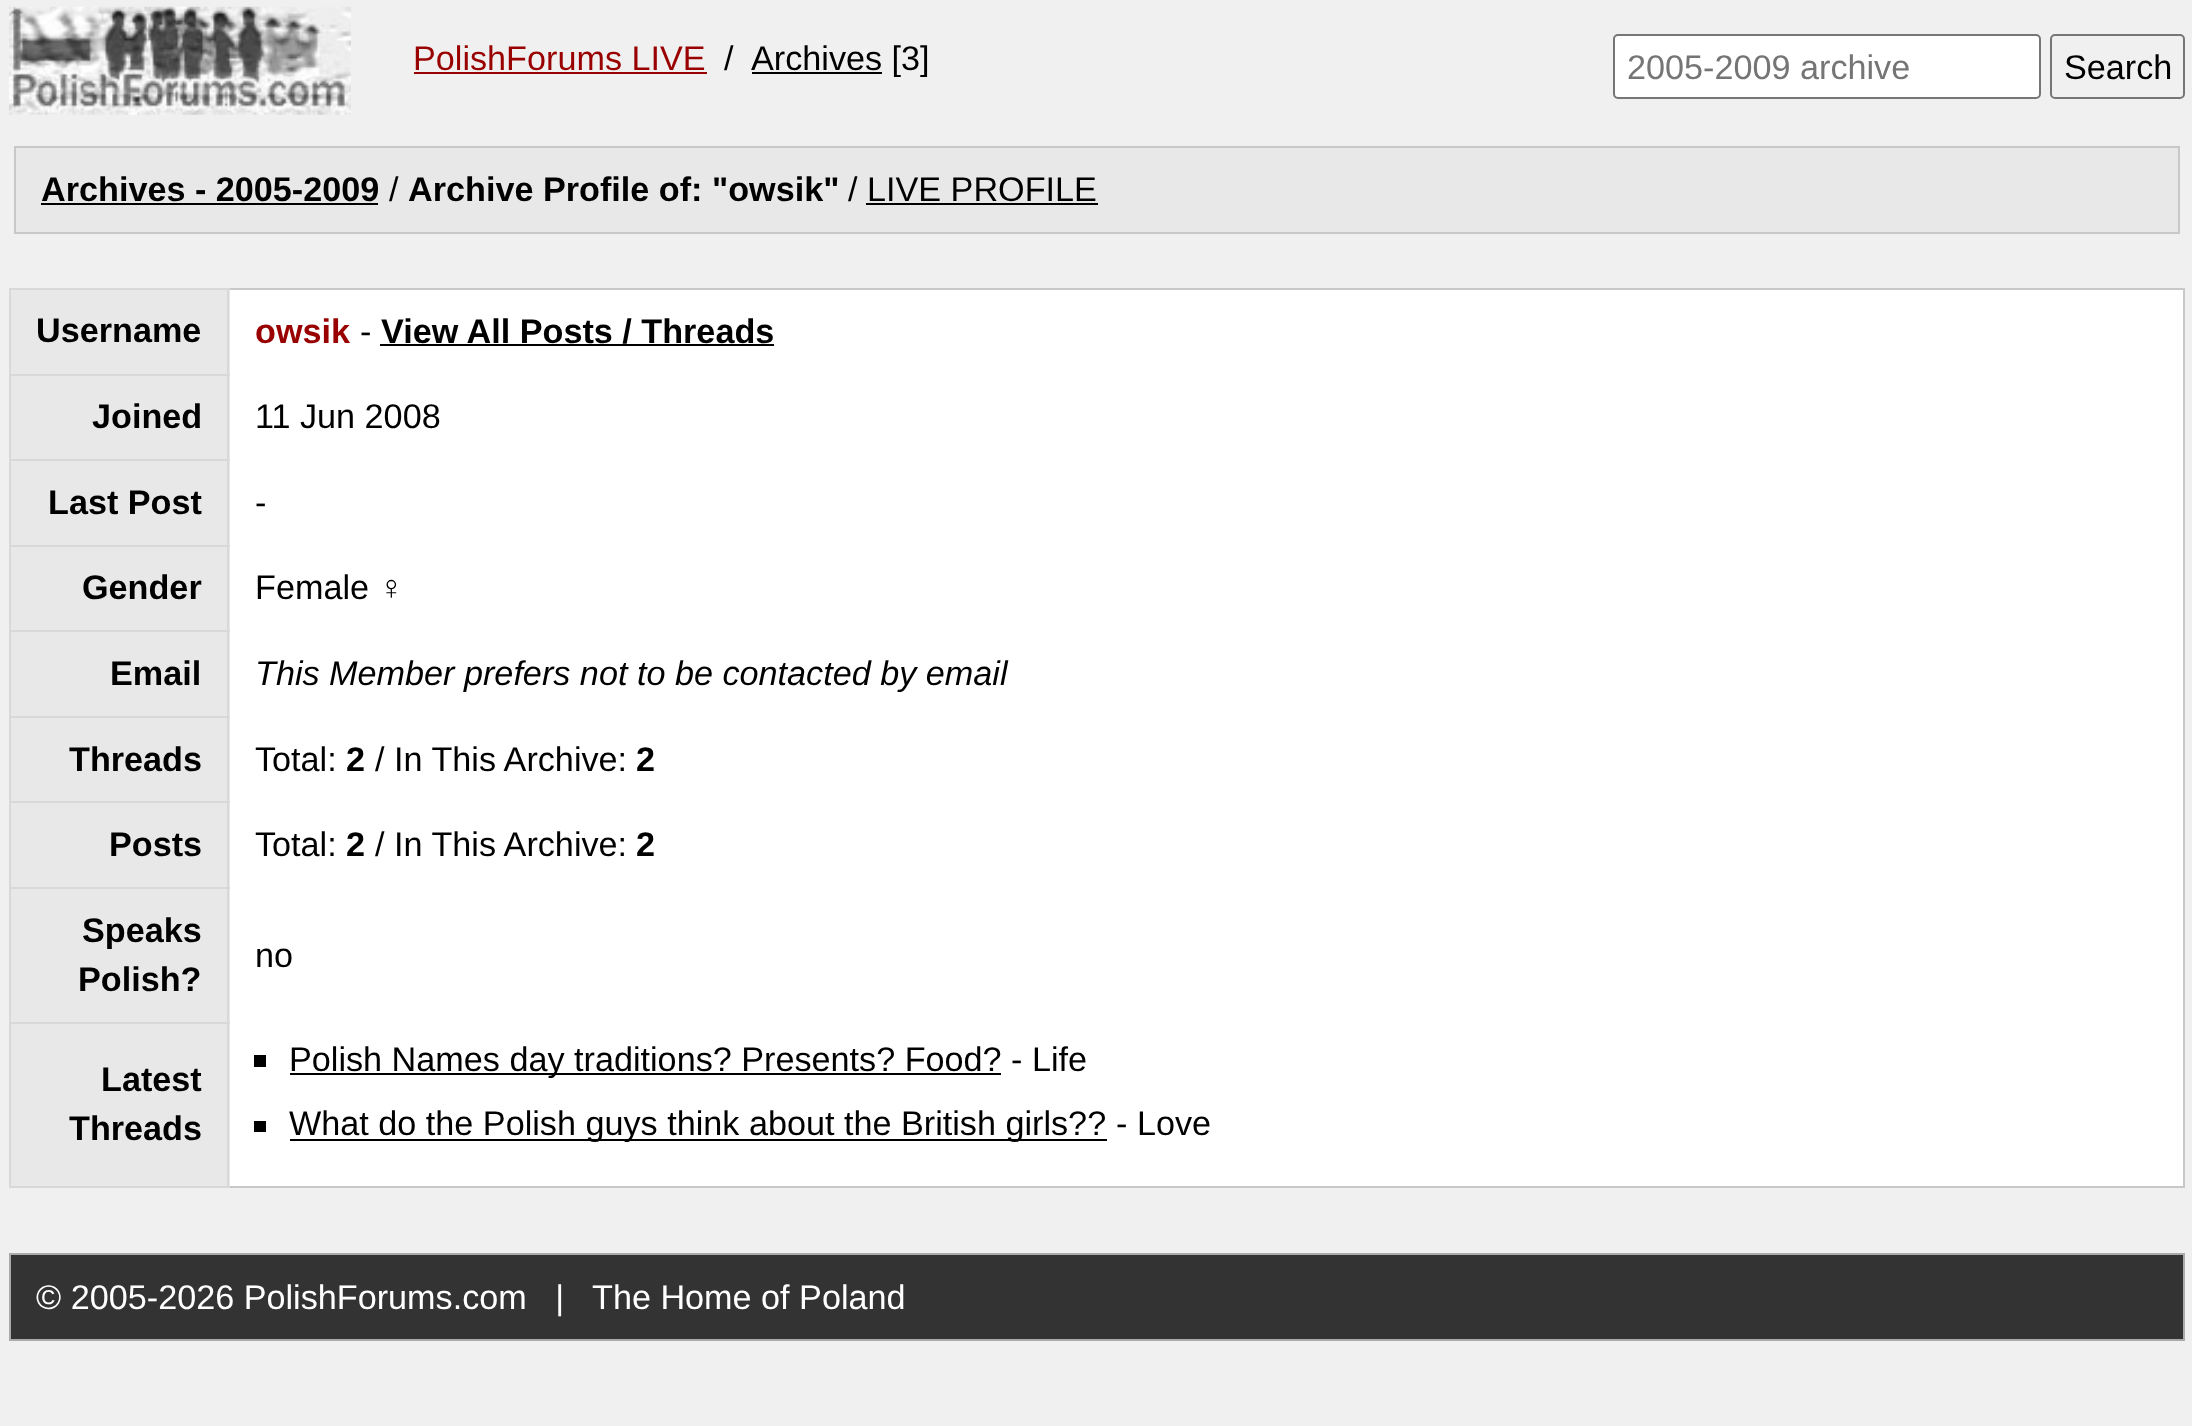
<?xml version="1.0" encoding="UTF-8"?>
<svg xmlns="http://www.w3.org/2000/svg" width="2192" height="1426">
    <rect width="100%" height="100%" fill="#F0F0F0"/>
    <image x="9" y="6" width="342" height="109" href="img_01.png"/>
    <text x="413" y="70" font-family="Liberation Sans" font-size="34.2" fill="#990000">PolishForums LIVE</text>
    <rect x="414" y="72" width="293" height="2" fill="#990000"/>
    <text x="724" y="70" font-family="Liberation Sans" font-size="34.2" fill="#000000">/</text>
    <rect x="752" y="72" width="130" height="2" fill="#000000"/>
    <text x="751" y="70" font-family="Liberation Sans" font-size="34.2" fill="#000000">Archives [3]</text>
    <rect x="1614" y="35" width="426" height="63" rx="4" fill="#FFFFFF" stroke="#767676" stroke-width="2"/>
    <text x="1627" y="79" font-family="Liberation Sans" font-size="34.2" fill="#757575">2005-2009 archive</text>
    <rect x="2051" y="35" width="133" height="63" rx="4" fill="none" stroke="#767676" stroke-width="2"/>
    <text x="2064" y="79" font-family="Liberation Sans" font-size="34.2" fill="#000000">Search</text>
    <rect x="15" y="147" width="2164" height="86" fill="#E8E8E8" stroke="#C8C8C8" stroke-width="2"/>
    <text x="41" y="201" font-family="Liberation Sans" font-size="34.2" font-weight="700" fill="#000000">Archives - 2005-2009</text>
    <rect x="41" y="203" width="337" height="2" fill="#000000"/>
    <text x="389" y="201" font-family="Liberation Sans" font-size="34.2" fill="#000000">/</text>
    <text x="408" y="201" font-family="Liberation Sans" font-size="34.2" font-weight="700" fill="#000000">Archive Profile of: "owsik"</text>
    <text x="848" y="201" font-family="Liberation Sans" font-size="34.2" fill="#000000">/ LIVE PROFILE</text>
    <rect x="866" y="203" width="232" height="2" fill="#000000"/>
    <rect x="11" y="290" width="219" height="896" fill="#E8E8E8"/>
    <rect x="230" y="288" width="1955" height="2" fill="#C8C8C8"/>
    <rect x="2183" y="288" width="2" height="900" fill="#C8C8C8"/>
    <rect x="230" y="1186" width="1955" height="2" fill="#C8C8C8"/>
    <rect x="9" y="288" width="221" height="2" fill="#D8D8D8"/>
    <rect x="9" y="374" width="221" height="2" fill="#D8D8D8"/>
    <rect x="9" y="459" width="221" height="2" fill="#D8D8D8"/>
    <rect x="9" y="545" width="221" height="2" fill="#D8D8D8"/>
    <rect x="9" y="630" width="221" height="2" fill="#D8D8D8"/>
    <rect x="9" y="716" width="221" height="2" fill="#D8D8D8"/>
    <rect x="9" y="801" width="221" height="2" fill="#D8D8D8"/>
    <rect x="9" y="887" width="221" height="2" fill="#D8D8D8"/>
    <rect x="9" y="1022" width="221" height="2" fill="#D8D8D8"/>
    <rect x="227" y="1022" width="2" height="166" fill="#D8D8D8"/>
    <rect x="227" y="887" width="2" height="137" fill="#D8D8D8"/>
    <rect x="227" y="801" width="2" height="88" fill="#D8D8D8"/>
    <rect x="227" y="716" width="2" height="87" fill="#D8D8D8"/>
    <rect x="227" y="630" width="2" height="88" fill="#D8D8D8"/>
    <rect x="227" y="545" width="2" height="87" fill="#D8D8D8"/>
    <rect x="227" y="459" width="2" height="88" fill="#D8D8D8"/>
    <rect x="227" y="374" width="2" height="87" fill="#D8D8D8"/>
    <rect x="227" y="288" width="2" height="88" fill="#D8D8D8"/>
    <rect x="9" y="1186" width="221" height="2" fill="#D8D8D8"/>
    <rect x="9" y="1022" width="2" height="166" fill="#D8D8D8"/>
    <rect x="9" y="887" width="2" height="137" fill="#D8D8D8"/>
    <rect x="9" y="801" width="2" height="88" fill="#D8D8D8"/>
    <rect x="9" y="716" width="2" height="87" fill="#D8D8D8"/>
    <rect x="9" y="630" width="2" height="88" fill="#D8D8D8"/>
    <rect x="9" y="545" width="2" height="87" fill="#D8D8D8"/>
    <rect x="9" y="459" width="2" height="88" fill="#D8D8D8"/>
    <rect x="9" y="374" width="2" height="87" fill="#D8D8D8"/>
    <rect x="9" y="288" width="2" height="88" fill="#D8D8D8"/>
    <text x="36" y="342" font-family="Liberation Sans" font-size="34.2" font-weight="700" fill="#000000">Username</text>
    <rect x="230" y="290" width="1953" height="896" fill="#FFFFFF"/>
    <text x="255" y="343" font-family="Liberation Sans" font-size="34.2" font-weight="700" fill="#990000">owsik</text>
    <text x="360" y="343" font-family="Liberation Sans" font-size="34.2" fill="#000000">-</text>
    <text x="381" y="343" font-family="Liberation Sans" font-size="34.2" font-weight="700" fill="#000000">View All Posts / Threads</text>
    <rect x="380" y="344" width="394" height="2" fill="#000000"/>
    <text x="92" y="428" font-family="Liberation Sans" font-size="34.2" font-weight="700" fill="#000000">Joined</text>
    <text x="255" y="428" font-family="Liberation Sans" font-size="34.2" fill="#000000">11 Jun 2008</text>
    <text x="48" y="514" font-family="Liberation Sans" font-size="34.2" font-weight="700" fill="#000000">Last Post</text>
    <text x="255" y="514" font-family="Liberation Sans" font-size="34.2" fill="#000000">-</text>
    <text x="82" y="599" font-family="Liberation Sans" font-size="34.2" font-weight="700" fill="#000000">Gender</text>
    <text x="255" y="599" font-family="Liberation Sans" font-size="34.2" fill="#000000">Female ♀</text>
    <text x="110" y="685" font-family="Liberation Sans" font-size="34.2" font-weight="700" fill="#000000">Email</text>
    <text x="255" y="685" font-family="Liberation Sans" font-size="34.2" font-style="italic" fill="#000000">This Member prefers not to be contacted by email</text>
    <text x="69" y="771" font-family="Liberation Sans" font-size="34.2" font-weight="700" fill="#000000">Threads</text>
    <text x="255" y="771" font-family="Liberation Sans" font-size="34.2" fill="#000000">Total:</text>
    <text x="346" y="771" font-family="Liberation Sans" font-size="34.2" font-weight="700" fill="#000000">2</text>
    <text x="375" y="771" font-family="Liberation Sans" font-size="34.2" fill="#000000">/ In This Archive:</text>
    <text x="636" y="771" font-family="Liberation Sans" font-size="34.2" font-weight="700" fill="#000000">2</text>
    <text x="109" y="856" font-family="Liberation Sans" font-size="34.2" font-weight="700" fill="#000000">Posts</text>
    <text x="255" y="856" font-family="Liberation Sans" font-size="34.2" fill="#000000">Total:</text>
    <text x="346" y="856" font-family="Liberation Sans" font-size="34.2" font-weight="700" fill="#000000">2</text>
    <text x="375" y="856" font-family="Liberation Sans" font-size="34.2" fill="#000000">/ In This Archive:</text>
    <text x="636" y="856" font-family="Liberation Sans" font-size="34.2" font-weight="700" fill="#000000">2</text>
    <text x="82" y="942" font-family="Liberation Sans" font-size="34.2" font-weight="700" fill="#000000">Speaks</text>
    <text x="78" y="991" font-family="Liberation Sans" font-size="34.2" font-weight="700" fill="#000000">Polish?</text>
    <text x="255" y="967" font-family="Liberation Sans" font-size="34.2" fill="#000000">no</text>
    <text x="101" y="1091" font-family="Liberation Sans" font-size="34.2" font-weight="700" fill="#000000">Latest</text>
    <text x="69" y="1140" font-family="Liberation Sans" font-size="34.2" font-weight="700" fill="#000000">Threads</text>
    <rect x="254" y="1055" width="12" height="12" fill="#000000"/>
    <rect x="290" y="1073" width="711" height="2" fill="#000000"/>
    <text x="289" y="1071" font-family="Liberation Sans" font-size="34.2" fill="#000000">Polish Names day traditions? Presents? Food?</text>
    <text x="1011" y="1071" font-family="Liberation Sans" font-size="34.2" fill="#000000">- Life</text>
    <rect x="254" y="1121" width="12" height="11" fill="#000000"/>
    <rect x="290" y="1139" width="817" height="2" fill="#000000"/>
    <text x="289" y="1135" font-family="Liberation Sans" font-size="34.2" fill="#000000">What do the Polish guys think about the British girls??</text>
    <text x="1116" y="1135" font-family="Liberation Sans" font-size="34.2" fill="#000000">- Love</text>
    <rect x="10" y="1254" width="2174" height="86" fill="#333333" stroke="#AAAAAA" stroke-width="2"/>
    <text x="36" y="1309" font-family="Liberation Sans" font-size="34.2" fill="#FFFFFF" xml:space="preserve">© 2005-2026 PolishForums.com   |   The Home of Poland</text>
</svg>
